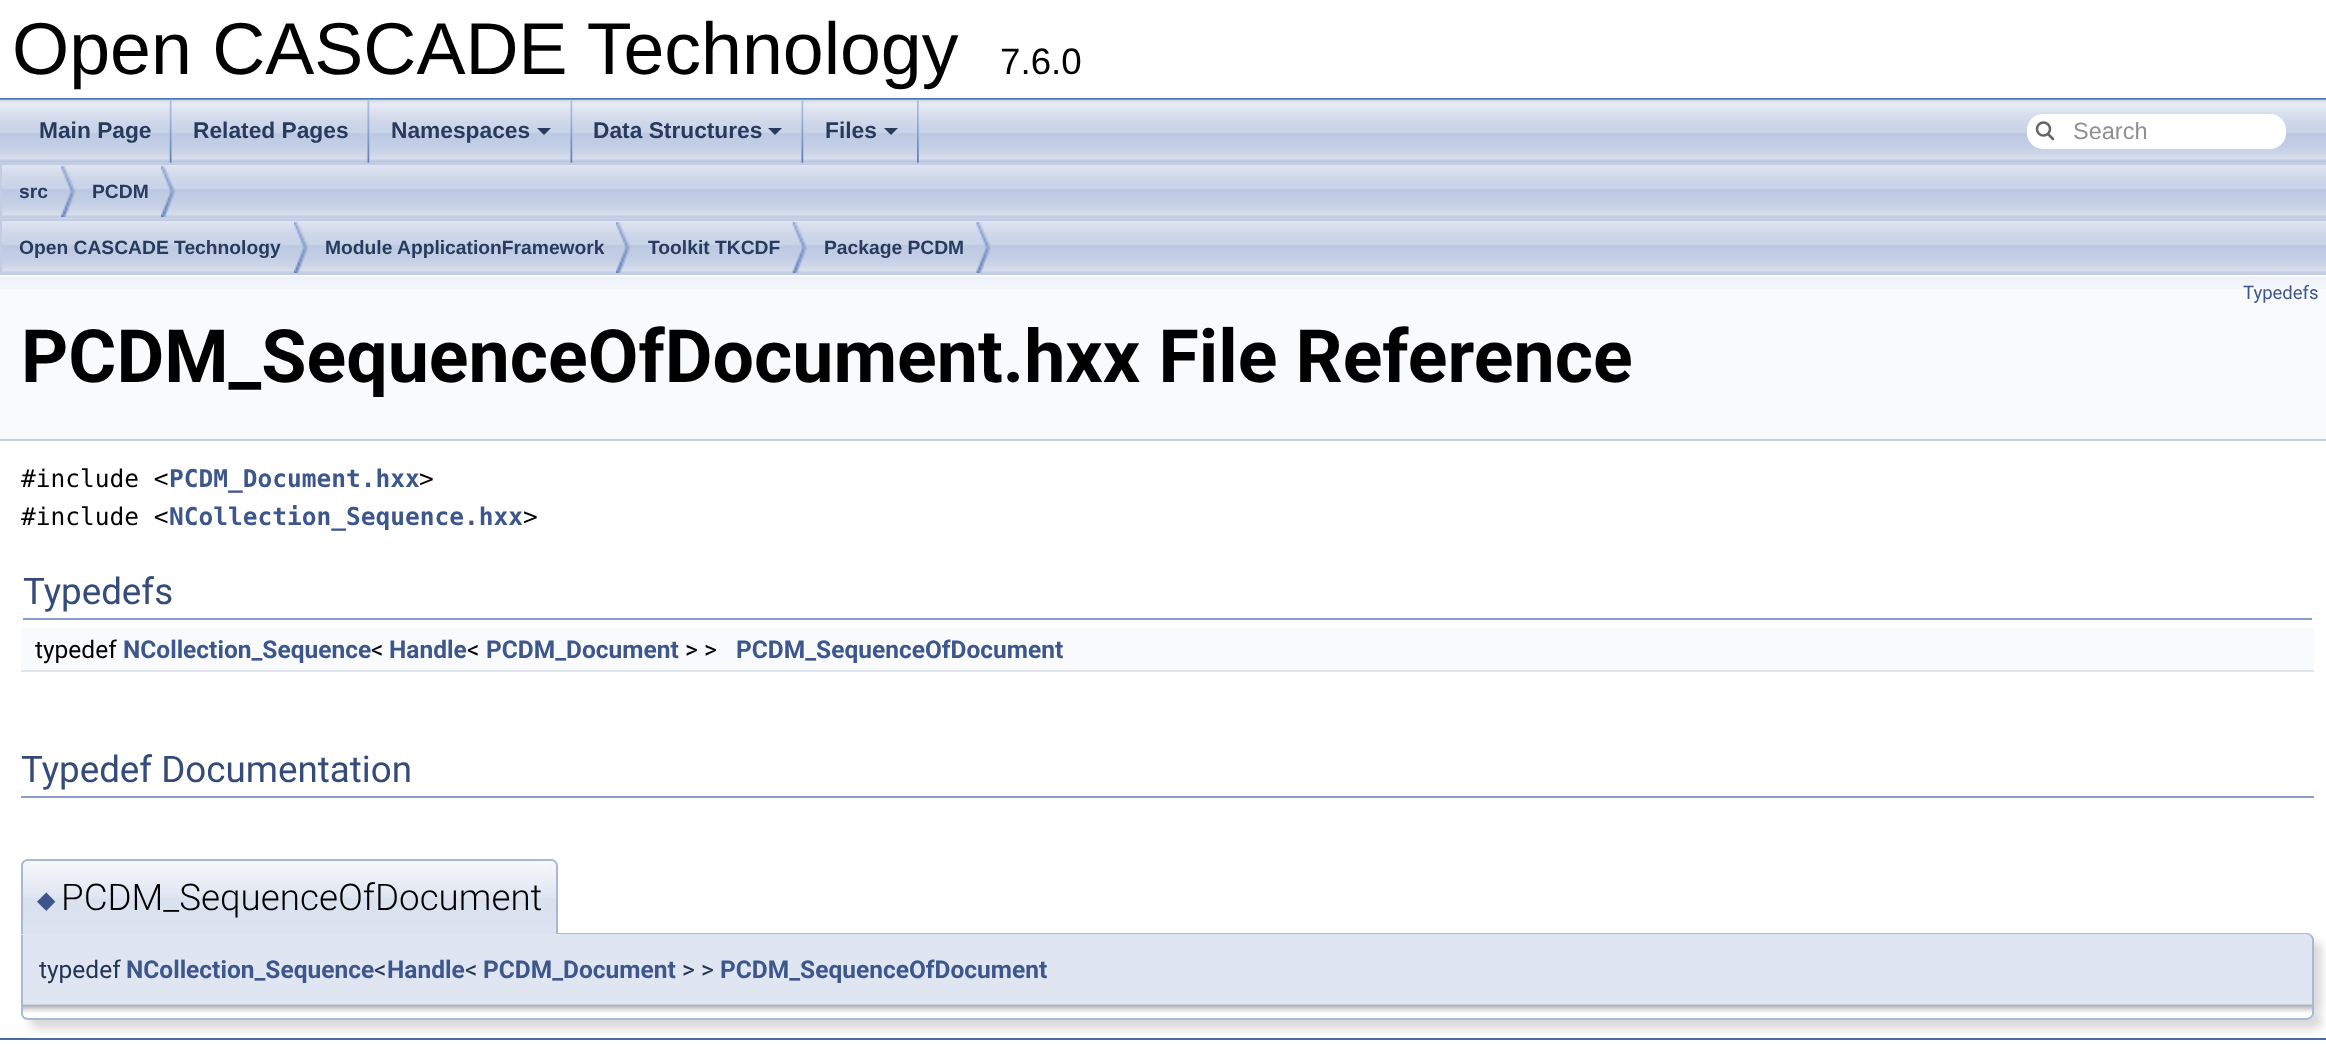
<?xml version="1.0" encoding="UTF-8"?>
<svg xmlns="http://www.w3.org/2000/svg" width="2326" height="1046">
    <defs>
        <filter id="blur1" x="-50%" y="-200%" width="200%" height="500%"><feGaussianBlur stdDeviation="4.5"/></filter>
    </defs>
    <rect width="100%" height="100%" fill="#FFFFFF"/>
    <rect x="0" y="98" width="2326" height="2" fill="#5373B4"/>
    <text x="12" y="74" font-family="Liberation Sans" font-size="73.5" fill="#000000">Open CASCADE Technology</text>
    <text x="1000" y="74" font-family="Liberation Sans" font-size="36.75" fill="#000000">7.6.0</text>
    <image x="0" y="162" width="2326" height="55" href="img_05.png"/>
    <image x="0" y="99" width="2326" height="64" href="img_01.png"/>
    <image x="169" y="99" width="3" height="64" href="img_02.png"/>
    <text x="39" y="138" font-family="Liberation Sans" font-size="22.75" font-weight="700" fill="#283A5D">Main Page</text>
    <image x="367" y="99" width="3" height="64" href="img_03.png"/>
    <text x="193" y="138" font-family="Liberation Sans" font-size="22.75" font-weight="700" fill="#283A5D">Related Pages</text>
    <image x="570" y="99" width="3" height="64" href="img_03.png"/>
    <text x="391" y="138" font-family="Liberation Sans" font-size="22.75" font-weight="700" fill="#283A5D">Namespaces</text>
    <path d="M 537 128 H 551 L 544 135 Z" fill="#283A5D"/>
    <image x="801" y="99" width="3" height="64" href="img_03.png"/>
    <text x="593" y="138" font-family="Liberation Sans" font-size="22.75" font-weight="700" fill="#283A5D">Data Structures</text>
    <path d="M 768 128 H 782 L 775 135 Z" fill="#283A5D"/>
    <image x="917" y="99" width="2" height="64" href="img_04.png"/>
    <text x="825" y="138" font-family="Liberation Sans" font-size="22.75" font-weight="700" fill="#283A5D">Files</text>
    <path d="M 884 128 H 898 L 891 135 Z" fill="#283A5D"/>
    <rect x="2027" y="114" width="259" height="35" rx="16" fill="#FFFFFF"/>
    <circle cx="2043.5" cy="129" r="6.5" fill="none" stroke="#656565" stroke-width="2.5"/>
    <path d="M 2048 134 L 2053 139" fill="none" stroke="#656565" stroke-width="2.5" stroke-linecap="round"/>
    <text x="2073" y="139" font-family="Liberation Sans" font-size="23.5" fill="#909090">Search</text>
    <rect x="1" y="164" width="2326" height="54" fill="none" stroke="#C2CDE4" stroke-width="2"/>
    <image x="61" y="166" width="15" height="51" href="img_06.png"/>
    <text x="19" y="198" font-family="Liberation Sans" font-size="19.25" font-weight="700" fill="#283A5D">src</text>
    <image x="161" y="166" width="14" height="51" href="img_07.png"/>
    <text x="92" y="198" font-family="Liberation Sans" font-size="19.25" font-weight="700" fill="#283A5D">PCDM</text>
    <image x="0" y="218" width="2326" height="55" href="img_08.png"/>
    <rect x="1" y="220" width="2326" height="54" fill="none" stroke="#C2CDE4" stroke-width="2"/>
    <image x="294" y="222" width="14" height="51" href="img_09.png"/>
    <text x="19" y="254" font-family="Liberation Sans" font-size="19.25" font-weight="700" fill="#283A5D">Open CASCADE Technology</text>
    <image x="616" y="222" width="14" height="51" href="img_09.png"/>
    <text x="325" y="254" font-family="Liberation Sans" font-size="19.25" font-weight="700" fill="#283A5D">Module ApplicationFramework</text>
    <image x="792" y="222" width="15" height="51" href="img_10.png"/>
    <text x="648" y="254" font-family="Liberation Sans" font-size="19.25" font-weight="700" fill="#283A5D">Toolkit TKCDF</text>
    <image x="976" y="222" width="15" height="51" href="img_11.png"/>
    <text x="824" y="254" font-family="Liberation Sans" font-size="19.25" font-weight="700" fill="#283A5D">Package PCDM</text>
    <rect x="0" y="289" width="2326" height="150" fill="#F9FAFC"/>
    <image x="0" y="275" width="2326" height="14" href="img_12.png"/>
    <rect x="0" y="439" width="2326" height="2" fill="#C4CFE5"/>
    <text x="2243" y="299" font-family="Roboto" font-size="18.5" fill="#3D578C">Typedefs</text>
    <text x="21" y="382" font-family="Roboto" font-size="73.5" font-weight="700" fill="#000000">PCDM_SequenceOfDocument.hxx File Reference</text>
    <text x="21" y="487" font-family="DejaVu Sans Mono" font-size="24.5" fill="#000000">#include &lt;</text>
    <text x="169" y="487" font-family="DejaVu Sans Mono" font-size="24.5" font-weight="700" fill="#3D578C">PCDM_Document.hxx</text>
    <text x="419" y="487" font-family="DejaVu Sans Mono" font-size="24.5" fill="#000000">&gt;</text>
    <text x="21" y="525" font-family="DejaVu Sans Mono" font-size="24.5" fill="#000000">#include &lt;</text>
    <text x="169" y="525" font-family="DejaVu Sans Mono" font-size="24.5" font-weight="700" fill="#3D578C">NCollection_Sequence.hxx</text>
    <text x="523" y="525" font-family="DejaVu Sans Mono" font-size="24.5" fill="#000000">&gt;</text>
    <rect x="23" y="618" width="2289" height="2" fill="#879ECB"/>
    <text x="23" y="604" font-family="Roboto" font-size="36.75" fill="#354C7B">Typedefs</text>
    <rect x="21" y="628" width="2293" height="41" fill="#F9FAFC"/>
    <text x="35" y="658" font-family="Roboto" font-size="24.5" fill="#000000">typedef</text>
    <text x="123" y="658" font-family="Roboto" font-size="24.5" font-weight="700" fill="#3D578C">NCollection_Sequence</text>
    <text x="371" y="658" font-family="Roboto" font-size="24.5" fill="#000000">&lt;</text>
    <text x="389" y="658" font-family="Roboto" font-size="24.5" font-weight="700" fill="#3D578C">Handle</text>
    <text x="467" y="658" font-family="Roboto" font-size="24.5" fill="#000000">&lt;</text>
    <text x="486" y="658" font-family="Roboto" font-size="24.5" font-weight="700" fill="#3D578C">PCDM_Document</text>
    <text x="685" y="658" font-family="Roboto" font-size="24.5" fill="#000000">&gt; &gt;</text>
    <text x="736" y="658" font-family="Roboto" font-size="24.5" font-weight="700" fill="#3D578C">PCDM_SequenceOfDocument</text>
    <rect x="21" y="670" width="2293" height="2" fill="#DEE4F0"/>
    <rect x="21" y="796" width="2293" height="2" fill="#879ECB"/>
    <text x="21" y="782" font-family="Roboto" font-size="36.75" fill="#354C7B">Typedef Documentation</text>
    <rect x="30" y="942" width="2292" height="71" rx="7" fill="#000000" fill-opacity="0.15" filter="url(#blur1)"/>
    <path d="M 21 933 H 2307 C 2311 933 2314 936 2314 940 V 1005 H 21 Z" fill="#DFE5F1"/>
    <path d="M 21 933 H 2306 C 2310 933 2314 936 2314 940 V 1004 H 21 Z M 23 934 H 2306 C 2309 934 2312 937 2312 940 V 1004 H 23 Z" fill="#A8B8D9" fill-rule="evenodd"/>
    <path d="M 28 859 H 551 C 555 859 558 862 558 866 V 935 H 21 V 866 C 21 862 24 859 28 859 Z" fill="#E2E8F2"/>
    <image x="21" y="861" width="537" height="73" href="img_13.png"/>
    <path d="M 28 859 H 551 C 555 859 558 862 558 866 V 934 H 21 V 866 C 21 862 24 859 28 859 Z M 28 861 H 551 C 554 861 556 863 556 866 V 934 H 23 V 866 C 23 863 25 861 28 861 Z" fill="#A8B8D9" fill-rule="evenodd"/>
    <text x="37" y="908" font-family="DejaVu Sans" font-size="24" fill="#3D578C">◆</text>
    <text x="61" y="910" font-family="Roboto" font-size="36.75" font-weight="300" fill="#000000">PCDM_SequenceOfDocument</text>
    <text x="39" y="978" font-family="Roboto" font-size="24.5" fill="#253555">typedef</text>
    <text x="126" y="978" font-family="Roboto" font-size="24.5" font-weight="700" fill="#3D578C">NCollection_Sequence</text>
    <text x="374" y="978" font-family="Roboto" font-size="24.5" fill="#253555">&lt;</text>
    <text x="387" y="978" font-family="Roboto" font-size="24.5" font-weight="700" fill="#3D578C">Handle</text>
    <text x="465" y="978" font-family="Roboto" font-size="24.5" fill="#253555">&lt;</text>
    <text x="483" y="978" font-family="Roboto" font-size="24.5" font-weight="700" fill="#3D578C">PCDM_Document</text>
    <text x="682" y="978" font-family="Roboto" font-size="24.5" fill="#253555">&gt; &gt;</text>
    <text x="720" y="978" font-family="Roboto" font-size="24.5" font-weight="700" fill="#3D578C">PCDM_SequenceOfDocument</text>
    <rect x="30" y="1013" width="2292" height="16" rx="7" fill="#000000" fill-opacity="0.15" filter="url(#blur1)"/>
    <path d="M 21 1005 H 2314 V 1013 C 2314 1017 2311 1020 2307 1020 H 28 C 24 1020 21 1017 21 1013 Z" fill="#FFFFFF"/>
    <image x="23" y="1004" width="2289" height="9" href="img_14.png"/>
    <path d="M 21 1004 H 2314 V 1013 C 2314 1017 2310 1020 2306 1020 H 28 C 24 1020 21 1017 21 1013 Z M 23 1004 H 2312 V 1013 C 2312 1016 2309 1018 2306 1018 H 28 C 25 1018 23 1016 23 1013 Z" fill="#A8B8D9" fill-rule="evenodd"/>
    <rect x="0" y="1038" width="2326" height="2" fill="#4A6AAA"/>
</svg>
